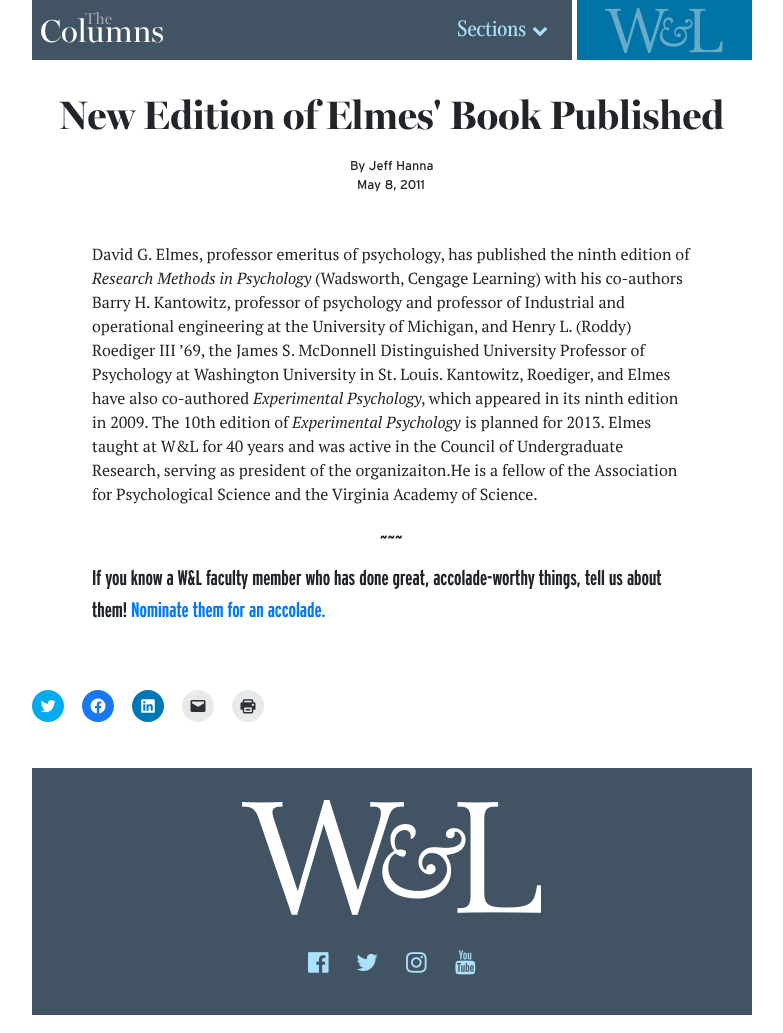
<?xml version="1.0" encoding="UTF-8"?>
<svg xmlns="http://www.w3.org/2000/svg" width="783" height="1033">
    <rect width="100%" height="100%" fill="#FFFFFF"/>
    <rect x="32" y="0" width="540" height="60" fill="#425363"/>
    <text x="40" y="42" font-family="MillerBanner" font-size="32" fill="#FFFFFF">Columns</text>
    <text x="85" y="24" font-family="MillerBanner" font-size="16" fill="#A1A9B1">The</text>
    <text x="457" y="36" font-family="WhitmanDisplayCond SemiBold" font-size="24" font-weight="600" fill="#ABE1FA">Sections</text>
    <image x="532" y="27" width="16" height="10" href="img_01.png"/>
    <rect x="577" y="0" width="175" height="60" fill="#0074A7"/>
    <image x="605" y="8" width="118" height="45" href="img_02.png"/>
    <text x="59" y="129" font-family="MillerBanner" font-size="40" font-weight="700" fill="#212529">New Edition of Elmes' Book Published</text>
    <text x="350" y="170" font-family="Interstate" font-size="12.75" fill="#212529">By Jeff Hanna</text>
    <text x="357" y="189" font-family="Interstate" font-size="12.75" fill="#212529">May 8, 2011</text>
    <text x="92" y="260" font-family="PT Serif" font-size="16" fill="#212529">David G. Elmes, professor emeritus of psychology, has published the ninth edition of</text>
    <text x="92" y="284" font-family="PT Serif" font-size="16" font-style="italic" fill="#212529">Research Methods in Psychology</text>
    <text x="315" y="284" font-family="PT Serif" font-size="16" fill="#212529">(Wadsworth, Cengage Learning) with his co-authors</text>
    <text font-family="PT Serif" font-size="16" fill="#212529">
        <tspan x="92" y="308">Barry H. Kantowitz, professor of psychology and professor of Industrial and</tspan>
        <tspan x="92" y="332">operational engineering at the University of Michigan, and Henry L. (Roddy)</tspan>
        <tspan x="92" y="356">Roediger III ’69, the James S. McDonnell Distinguished University Professor of</tspan>
        <tspan x="92" y="380">Psychology at Washington University in St. Louis. Kantowitz, Roediger, and Elmes</tspan>
        <tspan x="92" y="404">have also co-authored</tspan>
    </text>
    <text x="253" y="404" font-family="PT Serif" font-size="16" font-style="italic" fill="#212529">Experimental Psychology</text>
    <text x="421" y="404" font-family="PT Serif" font-size="16" fill="#212529">, which appeared in its ninth edition</text>
    <text x="92" y="428" font-family="PT Serif" font-size="16" fill="#212529">in 2009. The 10th edition of</text>
    <text x="292" y="428" font-family="PT Serif" font-size="16" font-style="italic" fill="#212529">Experimental Psychology</text>
    <text x="465" y="428" font-family="PT Serif" font-size="16" fill="#212529">is planned for 2013. Elmes</text>
    <text font-family="PT Serif" font-size="16" fill="#212529">
        <tspan x="92" y="452">taught at W&amp;L for 40 years and was active in the Council of Undergraduate</tspan>
        <tspan x="92" y="476">Research, serving as president of the organizaiton.He is a fellow of the Association</tspan>
        <tspan x="92" y="500">for Psychological Science and the Virginia Academy of Science.</tspan>
    </text>
    <text x="380" y="545" font-family="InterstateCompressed" font-size="21.2" font-weight="700" fill="#212529">~~~</text>
    <text font-family="InterstateCompressed" font-size="21.2" font-weight="700" fill="#212529">
        <tspan x="92" y="585">If you know a W&amp;L faculty member who has done great, accolade-worthy things, tell us about</tspan>
        <tspan x="92" y="617">them!</tspan>
    </text>
    <text x="131" y="617" font-family="InterstateCompressed" font-size="21.2" font-weight="700" fill="#007BFF">Nominate them for an accolade.</text>
    <circle cx="48" cy="706" r="16" fill="#00ACEE"/>
    <image x="40" y="700" width="16" height="13" href="img_03.png"/>
    <circle cx="98" cy="706" r="16" fill="#1877F2"/>
    <image x="90" y="698" width="16" height="16" href="img_04.png"/>
    <circle cx="148" cy="706" r="16" fill="#0077B5"/>
    <image x="141" y="699" width="14" height="14" href="img_05.png"/>
    <circle cx="198" cy="706" r="16" fill="#E9E9E9"/>
    <image x="190" y="700" width="16" height="12" href="img_06.png"/>
    <circle cx="248" cy="706" r="16" fill="#E9E9E9"/>
    <image x="240" y="699" width="16" height="15" href="img_07.png"/>
    <rect x="32" y="768" width="720" height="247" fill="#425363"/>
    <image x="242" y="800" width="299" height="115" href="img_08.png"/>
    <image x="308" y="952" width="21" height="21" href="img_09.png"/>
    <image x="356" y="953" width="22" height="18" href="img_10.png"/>
    <image x="406" y="952" width="21" height="21" href="img_11.png"/>
    <image x="455" y="950" width="21" height="25" href="img_12.png"/>
</svg>
